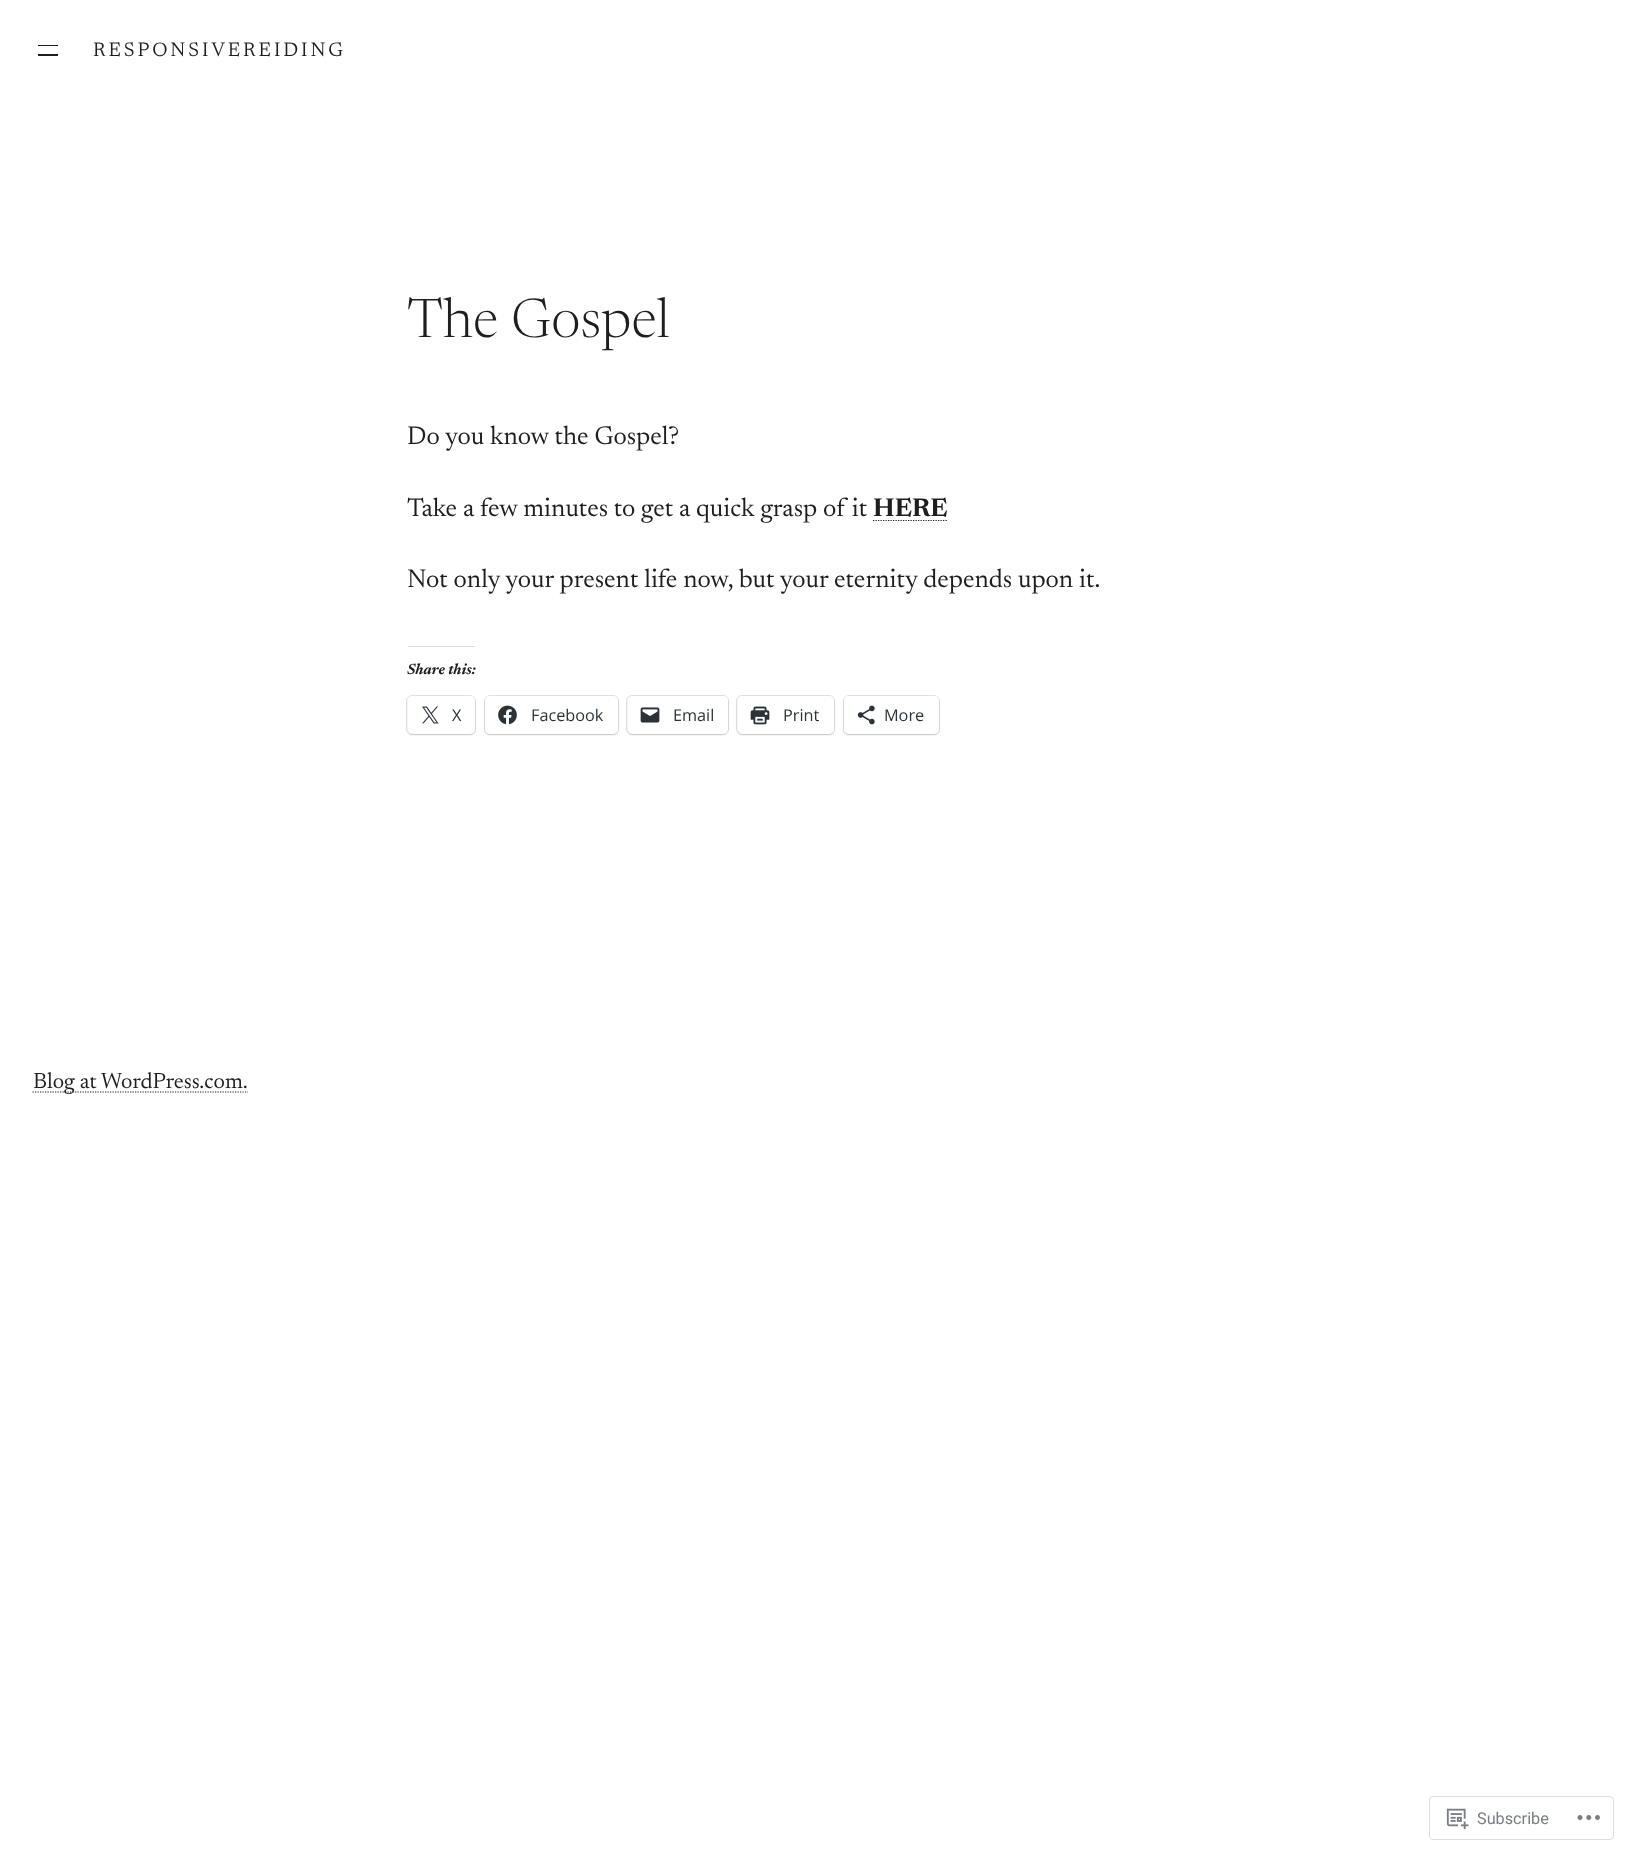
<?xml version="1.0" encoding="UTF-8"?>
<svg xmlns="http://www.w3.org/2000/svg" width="1626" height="1852">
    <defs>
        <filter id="blur1" x="-50%" y="-200%" width="200%" height="500%"><feGaussianBlur stdDeviation="1"/></filter>
    </defs>
    <rect width="100%" height="100%" fill="#FFFFFF"/>
    <rect x="38" y="45" width="20" height="1" fill="#1E1E1E"/>
    <rect x="38" y="54" width="20" height="2" fill="#1E1E1E"/>
    <text x="93" y="56" font-family="Newsreader" font-size="20" letter-spacing="3" fill="#1E1E1E">RESPONSIVEREIDING</text>
    <text x="407" y="337" font-family="Newsreader" font-size="55" font-weight="300" fill="#1E1E1E">The Gospel</text>
    <text x="407" y="444" font-family="'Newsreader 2'" font-size="26" fill="#1E1E1E">Do you know the Gospel?</text>
    <text x="407" y="516" font-family="'Newsreader 2'" font-size="26" fill="#1E1E1E">Take a few minutes to get a quick grasp of it</text>
    <text x="873" y="516" font-family="Newsreader" font-size="26" font-weight="700" fill="#1E1E1E">HERE</text>
    <path d="M 873 520.5 H 947.5" fill="none" stroke="#1E1E1E" stroke-width="1.2" stroke-dasharray="1.25 1.25"/>
    <text x="407" y="587" font-family="'Newsreader 2'" font-size="26" fill="#1E1E1E">Not only your present life now, but your eternity depends upon it.</text>
    <rect x="408" y="646" width="67" height="1" fill="#DCDCDE"/>
    <text x="407" y="674" font-family="Newsreader" font-size="15" font-weight="700" font-style="italic" fill="#1E1E1E">Share this:</text>
    <rect x="406.5" y="695.5" width="69" height="39" rx="5.5" fill="none" stroke="#E0E0E0"/>
    <rect x="408" y="698" width="67" height="37" rx="5" fill="#000000" fill-opacity="0.12" filter="url(#blur1)"/>
    <rect x="408" y="696" width="67" height="38" rx="5" fill="#FFFFFF"/>
    <image x="422" y="706" width="17" height="18" href="img_01.png"/>
    <text x="452" y="721" font-family="Open Sans" font-size="16.25" fill="#2C3338">X</text>
    <rect x="484.5" y="695.5" width="134" height="39" rx="5.5" fill="none" stroke="#E0E0E0"/>
    <rect x="485" y="698" width="133" height="37" rx="5" fill="#000000" fill-opacity="0.12" filter="url(#blur1)"/>
    <rect x="485" y="696" width="133" height="38" rx="5" fill="#FFFFFF"/>
    <image x="498" y="705" width="19" height="20" href="img_02.png"/>
    <text x="531" y="721" font-family="Open Sans" font-size="16.25" fill="#2C3338">Facebook</text>
    <rect x="626.5" y="695.5" width="102" height="39" rx="5.5" fill="none" stroke="#E0E0E0"/>
    <rect x="628" y="698" width="100" height="37" rx="5" fill="#000000" fill-opacity="0.12" filter="url(#blur1)"/>
    <rect x="628" y="696" width="100" height="38" rx="5" fill="#FFFFFF"/>
    <image x="640" y="707" width="20" height="16" href="img_03.png"/>
    <text x="673" y="721" font-family="Open Sans" font-size="16.25" fill="#2C3338">Email</text>
    <rect x="736.5" y="695.5" width="98" height="39" rx="5.5" fill="none" stroke="#E0E0E0"/>
    <rect x="738" y="698" width="96" height="37" rx="5" fill="#000000" fill-opacity="0.12" filter="url(#blur1)"/>
    <rect x="738" y="696" width="96" height="38" rx="5" fill="#FFFFFF"/>
    <image x="750" y="706" width="20" height="19" href="img_04.png"/>
    <text x="783" y="721" font-family="Open Sans" font-size="16.25" fill="#2C3338">Print</text>
    <rect x="843.5" y="695.5" width="96" height="39" rx="5.5" fill="none" stroke="#E0E0E0"/>
    <rect x="844" y="698" width="95" height="37" rx="5" fill="#000000" fill-opacity="0.12" filter="url(#blur1)"/>
    <rect x="844" y="696" width="95" height="38" rx="5" fill="#FFFFFF"/>
    <image x="857" y="705" width="18" height="20" href="img_05.png"/>
    <text x="884" y="721" font-family="Open Sans" font-size="16.25" fill="#2C3338">More</text>
    <path d="M 32.5 1092 H 248" fill="none" stroke="#1E1E1E" stroke-width="1.2" stroke-dasharray="1.25 1.25"/>
    <text x="33" y="1088" font-family="Newsreader" font-size="22.5" fill="#1E1E1E">Blog at WordPress.com.</text>
    <rect x="1429.5" y="1796.5" width="184" height="43" rx="3.5" fill="none" stroke="#DDDDDF"/>
    <image x="1446" y="1808" width="23" height="22" href="img_06.png"/>
    <text x="1477" y="1824" font-family="Roboto" font-size="16.25" fill="#7B7F85">Subscribe</text>
    <image x="1577" y="1815" width="23" height="5" href="img_07.png"/>
</svg>
